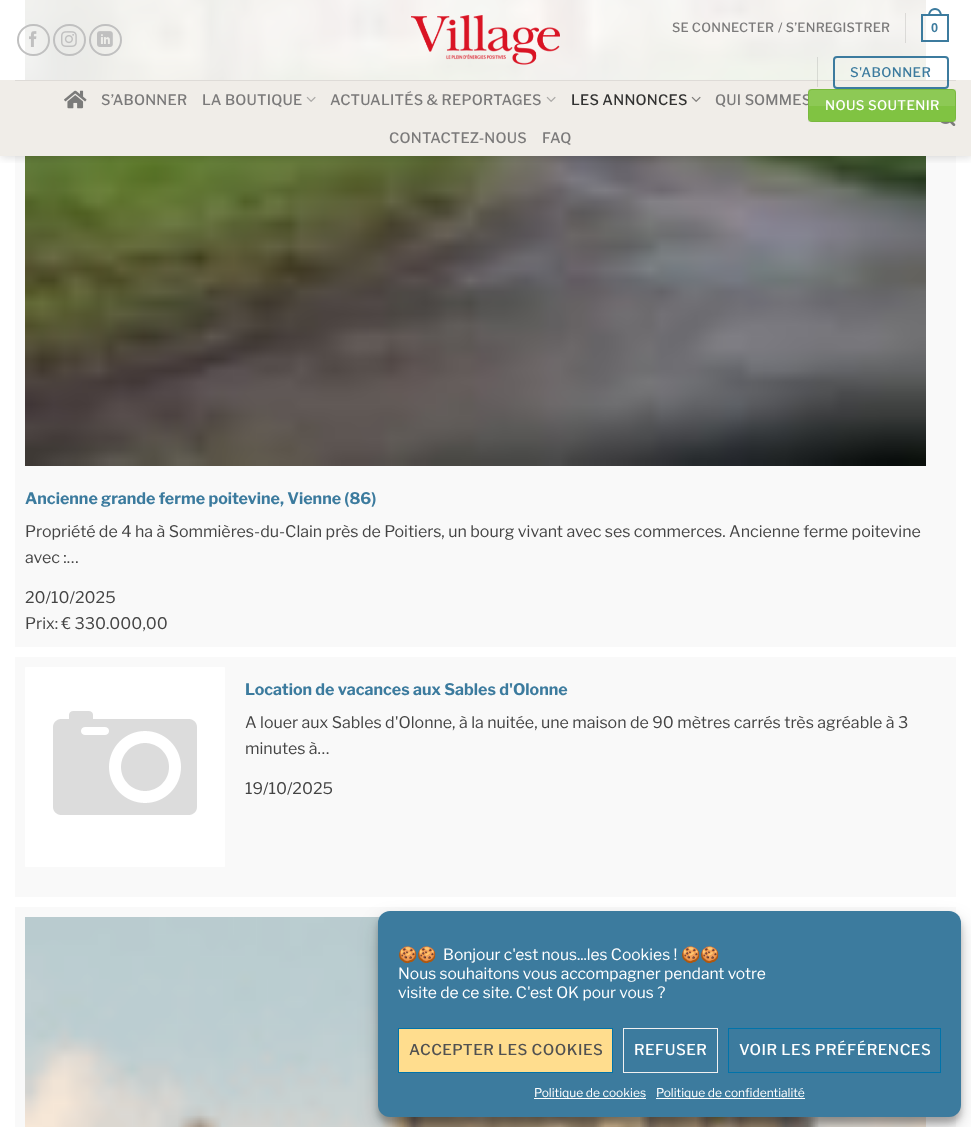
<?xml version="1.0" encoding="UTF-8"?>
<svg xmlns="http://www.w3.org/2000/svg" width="971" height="1127">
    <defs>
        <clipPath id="clip1"><rect x="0" y="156" width="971" height="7"/></clipPath>
        <filter id="blur1" x="-50%" y="-200%" width="200%" height="500%"><feGaussianBlur stdDeviation="5"/></filter>
        <filter id="blur2" x="-50%" y="-200%" width="200%" height="500%"><feGaussianBlur stdDeviation="3"/></filter>
        <filter id="blur3" x="-50%" y="-200%" width="200%" height="500%"><feGaussianBlur stdDeviation="10"/></filter>
        <clipPath id="clip2"><rect x="398" y="946" width="543" height="62"/></clipPath>
    </defs>
    <rect width="100%" height="100%" fill="#FFFFFF"/>
    <rect x="15" y="0" width="941" height="647" fill="#F9F9F9"/>
    <image x="25" y="0" width="901" height="466" href="img_09.png"/>
    <g clip-path="url(#clip1)">
        <rect x="1" y="1" width="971" height="156" fill="#000000" fill-opacity="0.15" filter="url(#blur1)"/>
    </g>
    <rect x="15" y="0" width="941" height="80" fill="#FFFFFF" fill-opacity="0.9"/>
    <rect x="18" y="25" width="31" height="30" rx="15" fill="none" stroke="#C0C0C0" stroke-width="2"/>
    <image x="29" y="31" width="8" height="16" href="img_01.png"/>
    <rect x="54" y="25" width="31" height="30" rx="15" fill="none" stroke="#C0C0C0" stroke-width="2"/>
    <image x="61" y="31" width="16" height="16" href="img_02.png"/>
    <rect x="90" y="25" width="31" height="30" rx="15" fill="none" stroke="#C0C0C0" stroke-width="2"/>
    <image x="97" y="31" width="16" height="16" href="img_03.png"/>
    <image x="411" y="15" width="149" height="50" href="img_04.png"/>
    <text x="672" y="32" font-family="Libre Franklin" font-size="12.75" font-weight="500" letter-spacing="0.25" fill="#7B7A7A">SE CONNECTER</text>
    <text x="778" y="32" font-family="Libre Franklin" font-size="12.75" font-weight="500" letter-spacing="0.25" fill="#7B7A7A">/ S’ENREGISTRER</text>
    <rect x="905" y="13" width="1" height="30" fill="#000000" fill-opacity="0.1"/>
    <rect x="922" y="15" width="26" height="26" fill="none" stroke="#3C7B9E" stroke-width="2"/>
    <path d="M 935 8 C 939.5 8 942 12 942 16 H 928 C 928 12 930.5 8 935 8 Z M 935 10 C 938.5 10 940 13 940 16 H 930 C 930 13 931.5 10 935 10 Z" fill="#3C7B9E" fill-rule="evenodd"/>
    <text x="931" y="32" font-family="Liberation Sans" font-size="12.75" font-weight="700" letter-spacing="0.25" fill="#3C7B9E">0</text>
    <rect x="0" y="80" width="971" height="76" fill="#F0EDE8"/>
    <rect x="817" y="57" width="1" height="30" fill="#000000" fill-opacity="0.1"/>
    <rect x="834" y="57" width="114" height="31" rx="3" fill="none" stroke="#3C7B9E" stroke-width="2"/>
    <text x="850" y="77" font-family="Libre Franklin" font-size="13.25" font-weight="500" letter-spacing="0.4" fill="#3C7B9E">S'ABONNER</text>
    <text x="715" y="105" font-family="Libre Franklin" font-size="14.4" font-weight="500" letter-spacing="0.25" fill="#7B7A7A">QUI SOMMES</text>
    <image x="940" y="121" width="16" height="5" href="img_08.png"/>
    <rect x="808" y="89" width="148" height="33" rx="4" fill="#80C342"/>
    <rect x="808.5" y="89.5" width="147" height="32" fill="none" stroke="#000000" stroke-opacity="0.05"/>
    <path d="M 812 90 H 952 C 953.5 90 955 91.5 955 93 V 106 H 809 V 93 C 809 91.5 810.5 90 812 90 Z" fill="#FFFFFF" fill-opacity="0.1"/>
    <text x="825" y="110" font-family="Libre Franklin" font-size="13.25" font-weight="500" letter-spacing="0.4" fill="#FFFFFF">NOUS SOUTENIR</text>
    <rect x="15" y="80" width="941" height="1" fill="#444444" fill-opacity="0.1"/>
    <image x="64" y="90" width="23" height="19" href="img_05.png"/>
    <text x="101" y="105" font-family="Libre Franklin" font-size="14.4" font-weight="500" letter-spacing="0.25" fill="#7B7A7A">S’ABONNER</text>
    <text x="202" y="105" font-family="Libre Franklin" font-size="14.4" font-weight="500" letter-spacing="0.25" fill="#7B7A7A">LA BOUTIQUE</text>
    <image x="306" y="96" width="10" height="6" href="img_06.png"/>
    <text x="330" y="105" font-family="Libre Franklin" font-size="14.4" font-weight="500" letter-spacing="0.25" fill="#7B7A7A">ACTUALITÉS &amp; REPORTAGES</text>
    <image x="546" y="96" width="10" height="6" href="img_06.png"/>
    <text x="571" y="105" font-family="Libre Franklin" font-size="14.4" font-weight="500" letter-spacing="0.25" fill="#323231">LES ANNONCES</text>
    <image x="691" y="96" width="10" height="6" href="img_07.png"/>
    <text x="389" y="143" font-family="Libre Franklin" font-size="14.4" font-weight="500" letter-spacing="0.25" fill="#7B7A7A">CONTACTEZ-NOUS</text>
    <text x="542" y="143" font-family="Libre Franklin" font-size="14.4" font-weight="500" letter-spacing="0.25" fill="#7B7A7A">FAQ</text>
    <text x="25" y="504" font-family="Libre Franklin" font-size="16" font-weight="700" fill="#3C7B9E">Ancienne grande ferme poitevine, Vienne (86)</text>
    <text font-family="Libre Franklin" font-size="16" fill="#444444">
        <tspan x="25" y="537">Propriété de 4 ha à Sommières-du-Clain près de Poitiers, un bourg vivant avec ses commerces. Ancienne ferme poitevine</tspan>
        <tspan x="25" y="563">avec :…</tspan>
    </text>
    <text font-family="Libre Franklin" font-size="16" fill="#444444">
        <tspan x="25" y="603">20/10/2025</tspan>
        <tspan x="25" y="629">Prix: € 330.000,00</tspan>
    </text>
    <rect x="15" y="657" width="941" height="240" fill="#F9F9F9"/>
    <image x="25" y="667" width="200" height="200" href="img_10.png"/>
    <text x="245" y="695" font-family="Libre Franklin" font-size="16" font-weight="700" fill="#3C7B9E">Location de vacances aux Sables d'Olonne</text>
    <text font-family="Libre Franklin" font-size="16" fill="#444444">
        <tspan x="245" y="728">A louer aux Sables d'Olonne, à la nuitée, une maison de 90 mètres carrés très agréable à 3</tspan>
        <tspan x="245" y="754">minutes à…</tspan>
    </text>
    <text x="245" y="794" font-family="Libre Franklin" font-size="16" fill="#444444">19/10/2025</text>
    <rect x="15" y="907" width="941" height="220" fill="#F9F9F9"/>
    <image x="25" y="917" width="901" height="210" href="img_11.png"/>
    <rect x="378" y="917" width="583" height="206" rx="12" fill="#000000" fill-opacity="0.23" filter="url(#blur2)"/>
    <rect x="378" y="921" width="583" height="206" rx="12" fill="#000000" fill-opacity="0.19" filter="url(#blur3)"/>
    <rect x="378" y="911" width="583" height="206" rx="12" fill="#3C7B9E"/>
    <g clip-path="url(#clip2)">
        <text x="398" y="960" font-family="Noto Color Emoji" font-size="15.6" fill="#FFFFFF">🍪🍪</text>
    </g>
    <text x="443" y="960" font-family="Libre Franklin" font-size="15.6" fill="#FFFFFF">Bonjour c'est nous...les Cookies !</text>
    <text x="681" y="960" font-family="Noto Color Emoji" font-size="15.6" fill="#FFFFFF">🍪🍪</text>
    <text font-family="Libre Franklin" font-size="15.6" fill="#FFFFFF">
        <tspan x="398" y="979">Nous souhaitons vous accompagner pendant votre</tspan>
        <tspan x="398" y="998">visite de ce site. C'est OK pour vous ?</tspan>
    </text>
    <rect x="398.5" y="1028.5" width="214" height="44" fill="#FFDD8E" stroke="#0073AA"/>
    <text x="409" y="1055" font-family="Libre Franklin" font-size="15" font-weight="500" letter-spacing="0.5" fill="#515151">ACCEPTER LES COOKIES</text>
    <rect x="623.5" y="1028.5" width="94" height="44" fill="none" stroke="#F1F1F1"/>
    <text x="634" y="1055" font-family="Libre Franklin" font-size="15" font-weight="500" letter-spacing="0.5" fill="#FFFFFF">REFUSER</text>
    <rect x="728.5" y="1028.5" width="212" height="44" fill="none" stroke="#0073AA"/>
    <text x="739" y="1055" font-family="Libre Franklin" font-size="15" font-weight="500" letter-spacing="0.5" fill="#FFFFFF">VOIR LES PRÉFÉRENCES</text>
    <rect x="534" y="1098" width="112" height="1" fill="#FFFFFF"/>
    <text x="534" y="1097" font-family="Libre Franklin" font-size="12" fill="#FFFFFF">Politique de cookies</text>
    <rect x="656" y="1098" width="149" height="1" fill="#FFFFFF"/>
    <text x="656" y="1097" font-family="Libre Franklin" font-size="12" fill="#FFFFFF">Politique de confidentialité</text>
</svg>
